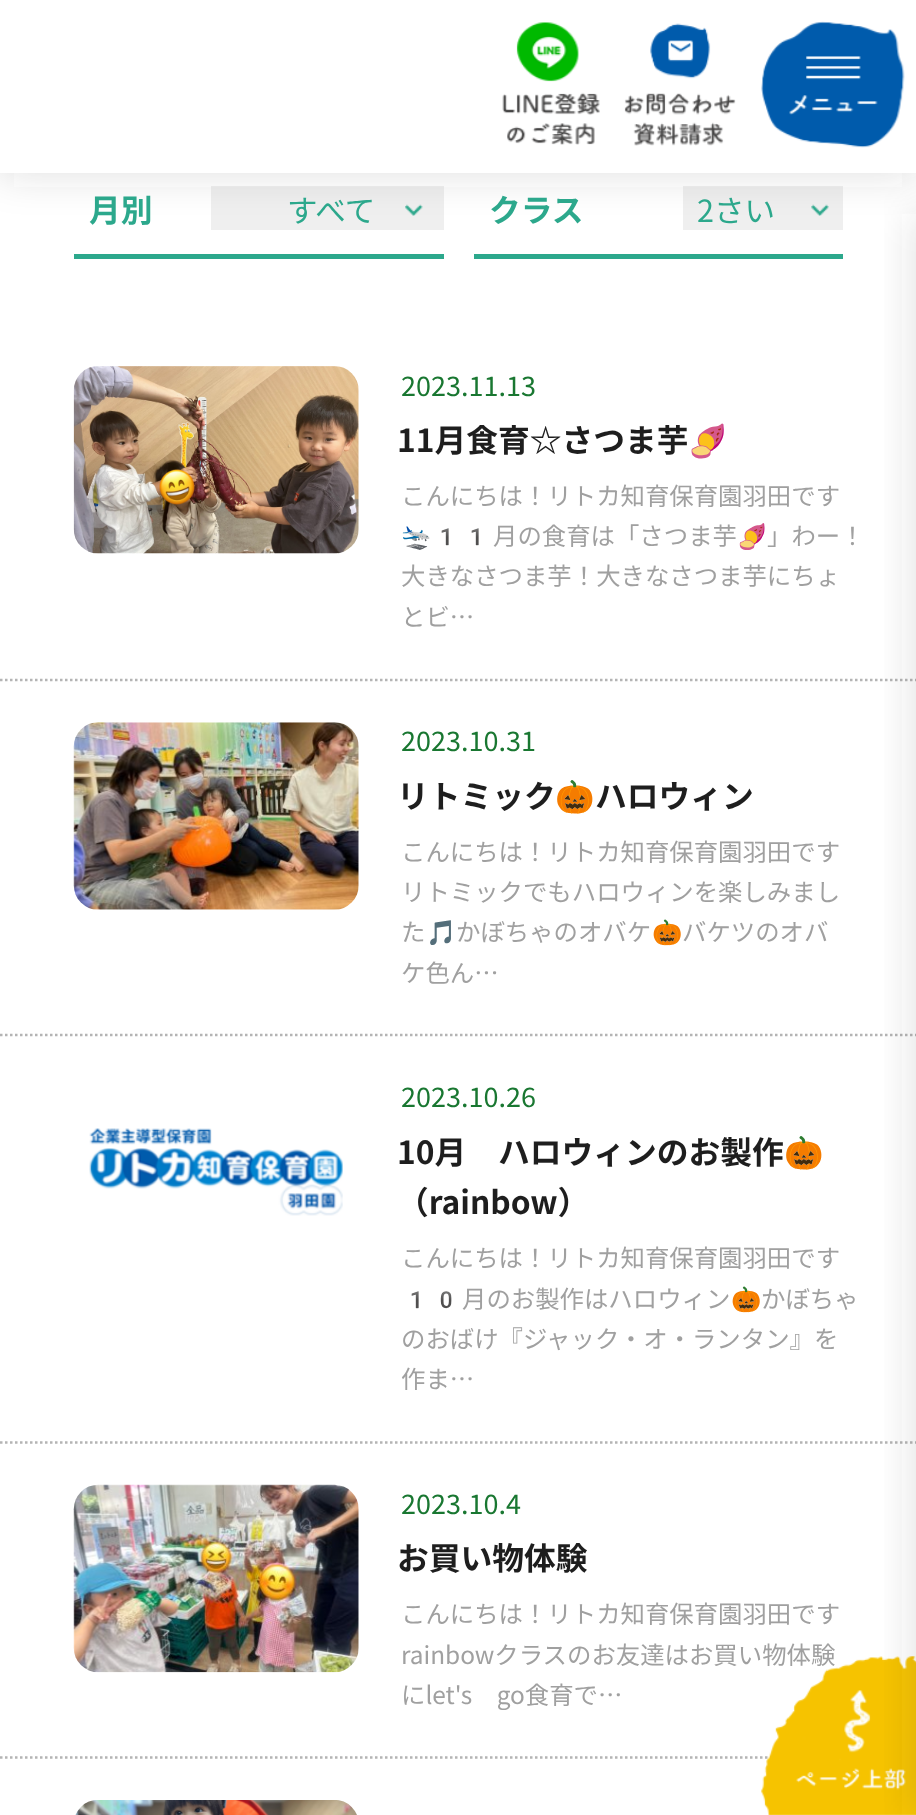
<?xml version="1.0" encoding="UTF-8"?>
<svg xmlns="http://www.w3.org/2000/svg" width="916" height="1815">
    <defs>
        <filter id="blur1" x="-50%" y="-200%" width="200%" height="500%"><feGaussianBlur stdDeviation="21"/></filter>
    </defs>
    <rect width="100%" height="100%" fill="#FFFFFF"/>
    <rect x="211" y="186" width="233" height="44" fill="#EFEFEF"/>
    <image x="405" y="204" width="18" height="12" href="img_04.png"/>
    <rect x="683" y="186" width="160" height="44" fill="#EFEFEF"/>
    <image x="811" y="204" width="18" height="12" href="img_05.png"/>
    <rect x="0" y="0" width="916" height="173" fill="#333435" fill-opacity="0.17" filter="url(#blur1)"/>
    <rect x="0" y="0" width="916" height="173" fill="#FFFFFF"/>
    <image x="502" y="22" width="98" height="123" href="img_01.png"/>
    <image x="624" y="23" width="112" height="123" href="img_02.png"/>
    <image x="761" y="21" width="144" height="127" href="img_03.png"/>
    <rect x="74" y="254" width="370" height="5" fill="#2CA88C"/>
    <text x="89" y="222" font-family="Noto Sans JP" font-size="31.75" font-weight="700" fill="#2CA88C">月別</text>
    <text x="287" y="222" font-family="Noto Sans JP" font-size="30.5" fill="#2CA88C">すべて</text>
    <rect x="474" y="254" width="369" height="5" fill="#2CA88C"/>
    <text x="489" y="222" font-family="Noto Sans JP" font-size="31.75" font-weight="700" fill="#2CA88C">クラス</text>
    <text x="697" y="222" font-family="Noto Sans JP" font-size="30.5" fill="#2CA88C">2さい</text>
    <path d="M 0 680 H 916" fill="none" stroke="#B4B4B4" stroke-width="2.5" stroke-dasharray="2.5 2.5"/>
    <image x="73" y="366" width="286" height="188" href="img_06.png"/>
    <text x="401" y="396" font-family="Noto Sans JP" font-size="27" fill="#197731">2023.11.13</text>
    <text x="397" y="452" font-family="Noto Sans JP" font-size="31.75" font-weight="700" fill="#1E1E1E">11月食育☆さつま芋</text>
    <text x="688" y="452" font-family="Noto Color Emoji" font-size="31.75" font-weight="700" fill="#1E1E1E">🍠</text>
    <text x="401" y="505" font-family="Noto Sans JP" font-size="24.4" fill="#A0A0A0">こんにちは！リトカ知育保育園羽田です</text>
    <text x="401" y="545" font-family="Noto Color Emoji" font-size="24.4" fill="#A0A0A0">🛬11</text>
    <text x="493" y="545" font-family="Noto Sans JP" font-size="24.4" fill="#A0A0A0">月の食育は「さつま芋</text>
    <text x="737" y="545" font-family="Noto Color Emoji" font-size="24.4" fill="#A0A0A0">🍠</text>
    <text x="767" y="545" font-family="Noto Sans JP" font-size="24.4" fill="#A0A0A0">」わー！</text>
    <text font-family="Noto Sans JP" font-size="24.4" fill="#A0A0A0">
        <tspan x="401" y="585">大きなさつま芋！大きなさつま芋にちょ</tspan>
        <tspan x="401" y="626">とビ…</tspan>
    </text>
    <path d="M 0 1035 H 916" fill="none" stroke="#B4B4B4" stroke-width="2.5" stroke-dasharray="2.5 2.5"/>
    <image x="73" y="722" width="286" height="188" href="img_07.png"/>
    <text x="401" y="751" font-family="Noto Sans JP" font-size="27" fill="#197731">2023.10.31</text>
    <text x="397" y="808" font-family="Noto Sans JP" font-size="31.75" font-weight="700" fill="#1E1E1E">リトミック</text>
    <text x="555" y="808" font-family="Noto Color Emoji" font-size="31.75" font-weight="700" fill="#1E1E1E">🎃</text>
    <text x="595" y="808" font-family="Noto Sans JP" font-size="31.75" font-weight="700" fill="#1E1E1E">ハロウィン</text>
    <text font-family="Noto Sans JP" font-size="24.4" fill="#A0A0A0">
        <tspan x="401" y="861">こんにちは！リトカ知育保育園羽田です</tspan>
        <tspan x="401" y="901">リトミックでもハロウィンを楽しみまし</tspan>
        <tspan x="401" y="941">た</tspan>
    </text>
    <text x="426" y="941" font-family="Noto Color Emoji" font-size="24.4" fill="#A0A0A0">🎵</text>
    <text x="456" y="941" font-family="Noto Sans JP" font-size="24.4" fill="#A0A0A0">かぼちゃのオバケ</text>
    <text x="652" y="941" font-family="Noto Color Emoji" font-size="24.4" fill="#A0A0A0">🎃</text>
    <text x="682" y="941" font-family="Noto Sans JP" font-size="24.4" fill="#A0A0A0">バケツのオバ</text>
    <text x="401" y="982" font-family="Noto Sans JP" font-size="24.4" fill="#A0A0A0">ケ色ん…</text>
    <path d="M 0 1442.5 H 916" fill="none" stroke="#B4B4B4" stroke-width="2.5" stroke-dasharray="2.5 2.5"/>
    <image x="89" y="1128" width="254" height="88" href="img_08.png"/>
    <text x="401" y="1107" font-family="Noto Sans JP" font-size="27" fill="#197731">2023.10.26</text>
    <text x="397" y="1164" font-family="Noto Sans JP" font-size="31.75" font-weight="700" fill="#1E1E1E">10月　ハロウィンのお製作</text>
    <text x="784" y="1164" font-family="Noto Color Emoji" font-size="31.75" font-weight="700" fill="#1E1E1E">🎃</text>
    <text x="397" y="1214" font-family="Noto Sans JP" font-size="31.75" font-weight="700" fill="#1E1E1E">（rainbow）</text>
    <text x="401" y="1267" font-family="Noto Sans JP" font-size="24.4" fill="#A0A0A0">こんにちは！リトカ知育保育園羽田です</text>
    <text x="401" y="1308" font-family="Noto Color Emoji" font-size="24.4" fill="#A0A0A0">10</text>
    <text x="462" y="1308" font-family="Noto Sans JP" font-size="24.4" fill="#A0A0A0">月のお製作はハロウィン</text>
    <text x="731" y="1308" font-family="Noto Color Emoji" font-size="24.4" fill="#A0A0A0">🎃</text>
    <text x="761" y="1308" font-family="Noto Sans JP" font-size="24.4" fill="#A0A0A0">かぼちゃ</text>
    <text font-family="Noto Sans JP" font-size="24.4" fill="#A0A0A0">
        <tspan x="401" y="1348">のおばけ『ジャック・オ・ランタン』を</tspan>
        <tspan x="401" y="1388">作ま…</tspan>
    </text>
    <path d="M 0 1757.5 H 916" fill="none" stroke="#B4B4B4" stroke-width="2.5" stroke-dasharray="2.5 2.5"/>
    <image x="73" y="1484" width="286" height="189" href="img_09.png"/>
    <text x="401" y="1514" font-family="Noto Sans JP" font-size="27" fill="#197731">2023.10.4</text>
    <text x="397" y="1570" font-family="Noto Sans JP" font-size="31.75" font-weight="700" fill="#1E1E1E">お買い物体験</text>
    <text font-family="Noto Sans JP" font-size="24.4" fill="#A0A0A0">
        <tspan x="401" y="1623">こんにちは！リトカ知育保育園羽田です</tspan>
        <tspan x="401" y="1664">rainbowクラスのお友達はお買い物体験</tspan>
        <tspan x="401" y="1704">にlet's　go食育で…</tspan>
    </text>
    <image x="75" y="1800" width="282" height="15" href="img_10.png"/>
    <image x="761" y="1656" width="155" height="159" href="img_11.png"/>
    <rect x="916" y="214" width="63" height="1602" fill="#333435" fill-opacity="0.17" filter="url(#blur1)"/>
</svg>
